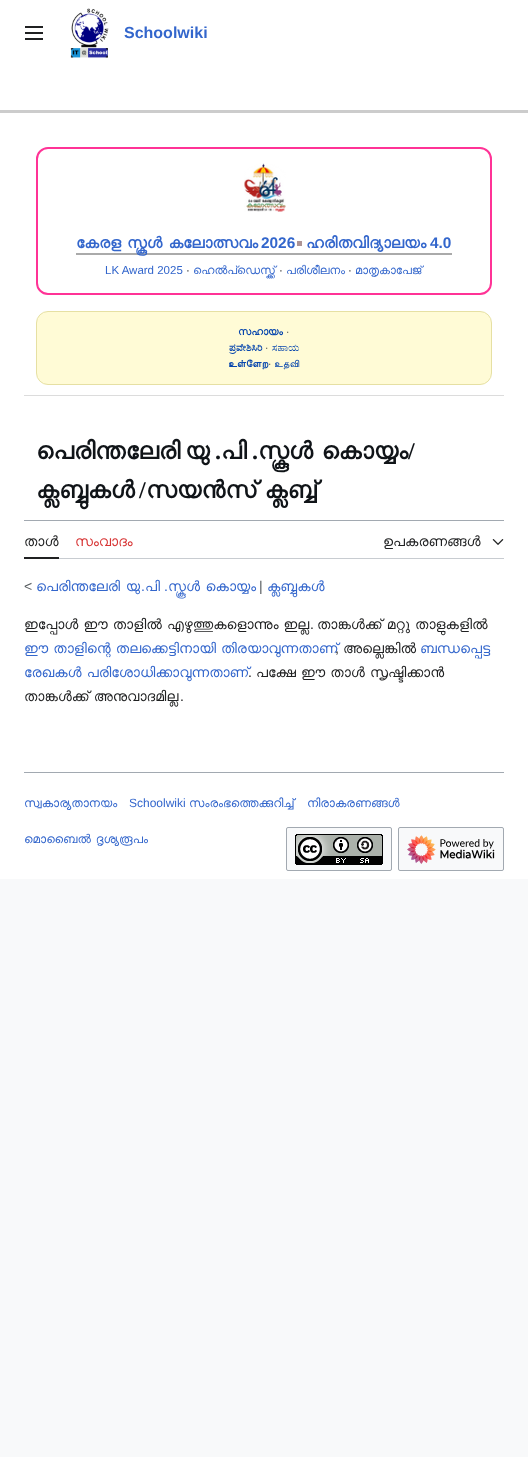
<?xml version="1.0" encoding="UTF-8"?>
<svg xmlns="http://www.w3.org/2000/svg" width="528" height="1457">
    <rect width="100%" height="100%" fill="#F8F9FA"/>
    <rect x="0" y="110" width="528" height="3" fill="#CCCCCC"/>
    <rect x="0" y="0" width="528" height="110" fill="#FFFFFF"/>
    <image x="25" y="26" width="18" height="14" href="img_01.png"/>
    <image x="70" y="8" width="39" height="50" href="img_02.png"/>
    <text x="124" y="38" font-family="Liberation Sans" font-size="16" font-weight="700" fill="#3366CC">Schoolwiki</text>
    <rect x="0" y="113" width="528" height="766" fill="#FFFFFF"/>
    <rect x="24" y="395" width="480" height="1" fill="#DCDCDC"/>
    <rect x="37" y="148" width="454" height="146" rx="11" fill="none" stroke="#FF3396" stroke-width="2"/>
    <image x="244" y="163" width="42" height="49" href="img_03.png"/>
    <rect x="76" y="253" width="376" height="2" fill="#AAAAAA"/>
    <text x="76" y="248" font-family="FreeSans" font-size="15.4" font-weight="700" fill="#3366CC">കേരള സ്കൂൾ കലോത്സവം</text>
    <text x="261" y="248" font-family="Liberation Sans" font-size="15.4" font-weight="700" fill="#3366CC">2026</text>
    <rect x="297" y="241" width="5" height="5" fill="#AD9494"/>
    <text x="306" y="248" font-family="FreeSans" font-size="15.4" font-weight="700" fill="#3366CC">ഹരിതവിദ്യാലയം</text>
    <text x="430" y="248" font-family="Liberation Sans" font-size="15.4" font-weight="700" fill="#3366CC">4.0</text>
    <text x="105" y="274" font-family="Liberation Sans" font-size="11.5" fill="#3366CC">LK Award 2025</text>
    <text x="186" y="274" font-family="Liberation Sans" font-size="11.5" fill="#202122">·</text>
    <text x="193" y="274" font-family="FreeSans" font-size="11.5" fill="#3366CC">ഹെൽപ്ഡെസ്ക്ക്</text>
    <text x="279" y="274" font-family="Liberation Sans" font-size="11.5" fill="#202122">·</text>
    <text x="286" y="274" font-family="FreeSans" font-size="11.5" fill="#3366CC">പരിശീലനം</text>
    <text x="348" y="274" font-family="Liberation Sans" font-size="11.5" fill="#202122">·</text>
    <text x="355" y="274" font-family="FreeSans" font-size="11.5" fill="#3366CC">മാതൃകാപേജ്</text>
    <rect x="36.5" y="311.5" width="455" height="73" rx="11.5" fill="#FFFBD6" stroke="#E6E0A3"/>
    <text x="238" y="335" font-family="FreeSans" font-size="10.25" font-weight="700" fill="#0645AD">സഹായം</text>
    <text x="286" y="335" font-family="Liberation Sans" font-size="10.25" fill="#202122">·</text>
    <text x="229" y="351" font-family="FreeSerif" font-size="10.25" font-weight="700" fill="#0645AD">ಪ್ರವೇಶಿಸಿರಿ</text>
    <text x="265" y="351" font-family="Liberation Sans" font-size="10.25" fill="#202122">·</text>
    <text x="272" y="351" font-family="FreeSerif" font-size="10.25" fill="#0645AD">ಸಹಾಯ</text>
    <text x="228" y="367" font-family="FreeSans" font-size="10.25" font-weight="700" fill="#0645AD">உள்ளேற</text>
    <text x="268" y="367" font-family="Liberation Sans" font-size="10.25" fill="#202122">·</text>
    <text x="274" y="367" font-family="FreeSans" font-size="10.25" fill="#0645AD">உதவி</text>
    <text x="36" y="459" font-family="FreeSans" font-size="24" font-weight="700" fill="#101418">പെരിന്തലേരി</text>
    <text x="185" y="459" font-family="FreeSans" font-size="24" font-weight="700" fill="#101418">യു</text>
    <text x="215" y="459" font-family="Liberation Serif" font-size="24" font-weight="700" fill="#101418">.</text>
    <text x="221" y="459" font-family="FreeSans" font-size="24" font-weight="700" fill="#101418">പി</text>
    <text x="252" y="459" font-family="Liberation Serif" font-size="24" font-weight="700" fill="#101418">.</text>
    <text x="258" y="459" word-spacing="-1" font-family="FreeSans" font-size="24" font-weight="700" fill="#101418">സ്കൂൾ‍‍‍‍ കൊയ്യം</text>
    <text x="408" y="459" font-family="Liberation Serif" font-size="24" font-weight="700" fill="#101418">/</text>
    <text x="36" y="498" font-family="FreeSans" font-size="24" font-weight="700" fill="#101418">ക്ലബ്ബുകൾ</text>
    <text x="139" y="498" font-family="Liberation Serif" font-size="24" font-weight="700" fill="#101418">/</text>
    <text x="146" y="498" word-spacing="-1" font-family="FreeSans" font-size="24" font-weight="700" fill="#101418">സയൻസ് ക്ലബ്ബ്</text>
    <rect x="24" y="520" width="480" height="1" fill="#A2A9B1"/>
    <rect x="59" y="558" width="445" height="1" fill="#C8CCD1"/>
    <rect x="24" y="557" width="35" height="2" fill="#202122"/>
    <text x="24" y="546" font-family="FreeSans" font-size="14" fill="#202122">താൾ</text>
    <text x="75" y="546" font-family="FreeSans" font-size="14" fill="#D73333">സംവാദം</text>
    <text x="383" y="546" font-family="FreeSans" font-size="14" fill="#202122">ഉപകരണങ്ങൾ</text>
    <image x="492" y="539" width="12" height="6" href="img_04.png"/>
    <text x="36" y="591" font-family="FreeSans" font-size="14" fill="#3366CC">പെരിന്തലേരി യു</text>
    <text x="141" y="591" font-family="Liberation Sans" font-size="14" fill="#3366CC">.</text>
    <text x="145" y="591" font-family="FreeSans" font-size="14" fill="#3366CC">പി</text>
    <text x="164" y="591" font-family="Liberation Sans" font-size="14" fill="#3366CC">.</text>
    <text x="168" y="591" font-family="FreeSans" font-size="14" fill="#3366CC">സ്കൂൾ‍‍‍‍ കൊയ്യം</text>
    <text x="259" y="591" font-family="Liberation Sans" font-size="14" fill="#54595D">|</text>
    <text x="24" y="591" font-family="Liberation Sans" font-size="14" fill="#54595D">&lt;</text>
    <text x="267" y="591" font-family="FreeSans" font-size="14" fill="#3366CC">ക്ലബ്ബുകൾ</text>
    <text x="24" y="629" word-spacing="-0.5" font-family="FreeSans" font-size="14" fill="#202122">ഇപ്പോൾ ഈ താളിൽ എഴുത്തുകളൊന്നും ഇല്ല</text>
    <text x="310" y="629" font-family="Liberation Sans" font-size="14" fill="#202122">.</text>
    <text x="317" y="629" word-spacing="-0.5" font-family="FreeSans" font-size="14" fill="#202122">താങ്കൾക്ക് മറ്റു താളുകളിൽ</text>
    <text x="24" y="653" word-spacing="-0.5" font-family="FreeSans" font-size="14" fill="#3366CC">ഈ താളിന്റെ തലക്കെട്ടിനായി തിരയാവുന്നതാണ്</text>
    <text x="343" y="653" font-family="FreeSans" font-size="14" fill="#202122">അല്ലെങ്കിൽ</text>
    <text x="420" y="653" font-family="FreeSans" font-size="14" fill="#3366CC">ബന്ധപ്പെട്ട</text>
    <text x="335" y="653" font-family="Liberation Sans" font-size="14" fill="#202122">,</text>
    <text x="24" y="677" word-spacing="-0.5" font-family="FreeSans" font-size="14" fill="#3366CC">രേഖകൾ പരിശോധിക്കാവുന്നതാണ്</text>
    <text x="248" y="677" font-family="Liberation Sans" font-size="14" fill="#202122">.</text>
    <text x="256" y="677" word-spacing="-0.5" font-family="FreeSans" font-size="14" fill="#202122">പക്ഷേ ഈ താൾ സൃഷ്ടിക്കാൻ</text>
    <text x="24" y="701" word-spacing="-0.5" font-family="FreeSans" font-size="14" fill="#202122">താങ്കൾക്ക് അനുവാദമില്ല</text>
    <text x="180" y="701" font-family="Liberation Sans" font-size="14" fill="#202122">.</text>
    <rect x="24" y="772" width="480" height="1" fill="#A2A9B1"/>
    <text x="24" y="807" font-family="FreeSans" font-size="12" fill="#3366CC">സ്വകാര്യതാനയം</text>
    <text x="129" y="807" font-family="Liberation Sans" font-size="12" fill="#3366CC">Schoolwiki</text>
    <text x="189" y="807" font-family="FreeSans" font-size="12" fill="#3366CC">സംരംഭത്തെക്കുറിച്ച്</text>
    <text x="307" y="807" font-family="FreeSans" font-size="12" fill="#3366CC">നിരാകരണങ്ങൾ</text>
    <text x="24" y="843" font-family="FreeSans" font-size="12" fill="#3366CC">മൊബൈൽ ദൃശ്യരൂപം</text>
    <rect x="286.5" y="827.5" width="105" height="43" rx="1.5" fill="#F8F9FA" stroke="#A2A9B1"/>
    <image x="295" y="834" width="88" height="31" href="img_05.png"/>
    <rect x="398.5" y="827.5" width="105" height="43" rx="1.5" fill="#F8F9FA" stroke="#A2A9B1"/>
    <image x="407" y="835" width="88" height="29" href="img_06.png"/>
</svg>
